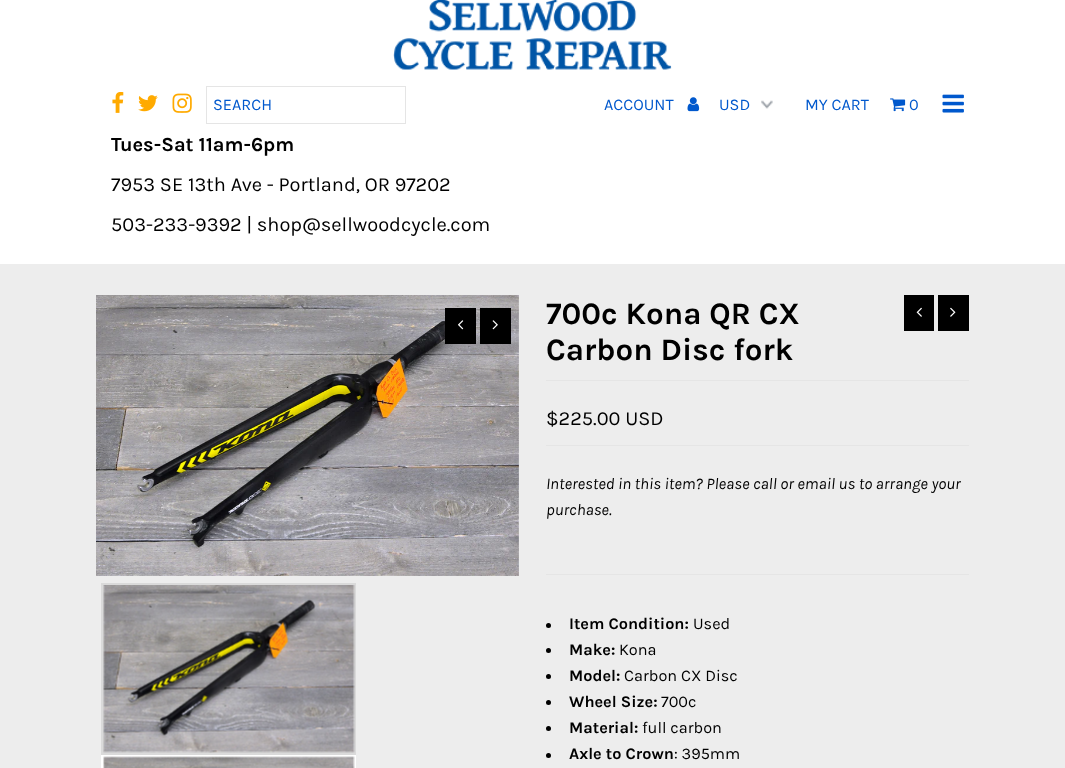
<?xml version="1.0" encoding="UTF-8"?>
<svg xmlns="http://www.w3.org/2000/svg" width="1065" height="768">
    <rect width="100%" height="100%" fill="#EDEDED"/>
    <rect x="0" y="0" width="1065" height="264" fill="#FFFFFF"/>
    <image x="393" y="0" width="279" height="70" href="img_01.png"/>
    <image x="112" y="92" width="12" height="21" href="img_02.png"/>
    <image x="138" y="95" width="20" height="17" href="img_03.png"/>
    <image x="172" y="93" width="20" height="20" href="img_04.png"/>
    <rect x="206.5" y="86.5" width="199" height="37" fill="none" stroke="#E5E5E5"/>
    <text x="213" y="110" font-family="Karla" font-size="16.25" fill="#0058CD">SEARCH</text>
    <text x="111" y="151" font-family="Karla" font-size="20" font-weight="700" fill="#000000">Tues-Sat 11am-6pm</text>
    <text x="111" y="191" font-family="Karla" font-size="20" fill="#000000">7953 SE 13th Ave - Portland, OR 97202</text>
    <text x="111" y="231" font-family="Karla" font-size="20" fill="#000000">503-233-9392 | shop@sellwoodcycle.com</text>
    <text x="604" y="110" font-family="Karla" font-size="16.25" fill="#0058CD">ACCOUNT</text>
    <image x="687" y="97" width="13" height="15" href="img_05.png"/>
    <image x="761" y="100" width="12" height="9" href="img_06.png"/>
    <text x="719" y="110" font-family="Karla" font-size="16.25" fill="#0058CD">USD</text>
    <text x="805" y="110" font-family="Karla" font-size="16.25" fill="#0058CD">MY CART</text>
    <image x="890" y="98" width="16" height="14" href="img_07.png"/>
    <text x="909" y="110" font-family="Karla" font-size="16.25" fill="#0058CD">0</text>
    <image x="942" y="94" width="22" height="19" href="img_08.png"/>
    <image x="96" y="295" width="423" height="281" href="img_09.png"/>
    <rect x="445" y="308" width="31" height="36" fill="#000000"/>
    <image x="458" y="320" width="6" height="10" href="img_10.png"/>
    <rect x="480" y="308" width="31" height="36" fill="#000000"/>
    <image x="492" y="320" width="6" height="10" href="img_11.png"/>
    <rect x="102.5" y="584.5" width="252" height="169" fill="none" stroke="#DADADA" stroke-width="3"/>
    <image x="103" y="585" width="252" height="168" href="img_12.png"/>
    <rect x="102.5" y="756.5" width="252" height="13" fill="none" stroke="#FFFFFF" stroke-width="3"/>
    <image x="103" y="756" width="252" height="12" href="img_13.png"/>
    <text font-family="Karla" font-size="31.25" font-weight="700" fill="#000000">
        <tspan x="546" y="324">700c Kona QR CX</tspan>
        <tspan x="546" y="360">Carbon Disc fork</tspan>
    </text>
    <rect x="904" y="295" width="30" height="36" fill="#000000"/>
    <image x="916" y="307" width="6" height="10" href="img_14.png"/>
    <rect x="938" y="295" width="31" height="36" fill="#000000"/>
    <image x="950" y="307" width="6" height="10" href="img_15.png"/>
    <rect x="546" y="380" width="423" height="1" fill="#E5E5E5"/>
    <rect x="546" y="574" width="423" height="1" fill="#E5E5E5"/>
    <rect x="546" y="445" width="423" height="1" fill="#E5E5E5"/>
    <text x="546" y="425" font-family="Karla" font-size="20" fill="#000000">$225.00 USD</text>
    <text font-family="Karla" font-size="16.25" font-style="italic" fill="#000000">
        <tspan x="546" y="489">Interested in this item? Please call or email us to arrange your</tspan>
        <tspan x="546" y="515">purchase.</tspan>
    </text>
    <circle cx="548.5" cy="625.5" r="2.5" fill="#000000"/>
    <text x="569" y="629" font-family="Karla" font-size="16.25" font-weight="700" fill="#000000">Item Condition:</text>
    <text x="693" y="629" font-family="Karla" font-size="16.25" fill="#000000">Used</text>
    <circle cx="548.5" cy="650.5" r="2.5" fill="#000000"/>
    <text x="569" y="655" font-family="Karla" font-size="16.25" font-weight="700" fill="#000000">Make:</text>
    <text x="619" y="655" font-family="Karla" font-size="16.25" fill="#000000">Kona</text>
    <circle cx="548.5" cy="676.5" r="2.5" fill="#000000"/>
    <text x="569" y="681" font-family="Karla" font-size="16.25" font-weight="700" fill="#000000">Model:</text>
    <text x="624" y="681" font-family="Karla" font-size="16.25" fill="#000000">Carbon CX Disc</text>
    <circle cx="548.5" cy="702.5" r="2.5" fill="#000000"/>
    <text x="569" y="707" font-family="Karla" font-size="16.25" font-weight="700" fill="#000000">Wheel Size:</text>
    <text x="661" y="707" font-family="Karla" font-size="16.25" fill="#000000">700c</text>
    <circle cx="548.5" cy="728.5" r="2.5" fill="#000000"/>
    <text x="569" y="733" font-family="Karla" font-size="16.25" font-weight="700" fill="#000000">Material:</text>
    <text x="642" y="733" font-family="Karla" font-size="16.25" fill="#000000">full carbon</text>
    <circle cx="548.5" cy="755.5" r="2.5" fill="#000000"/>
    <text x="569" y="759" font-family="Karla" font-size="16.25" font-weight="700" fill="#000000">Axle to Crown</text>
    <text x="674" y="759" font-family="Karla" font-size="16.25" fill="#000000">: 395mm</text>
</svg>
